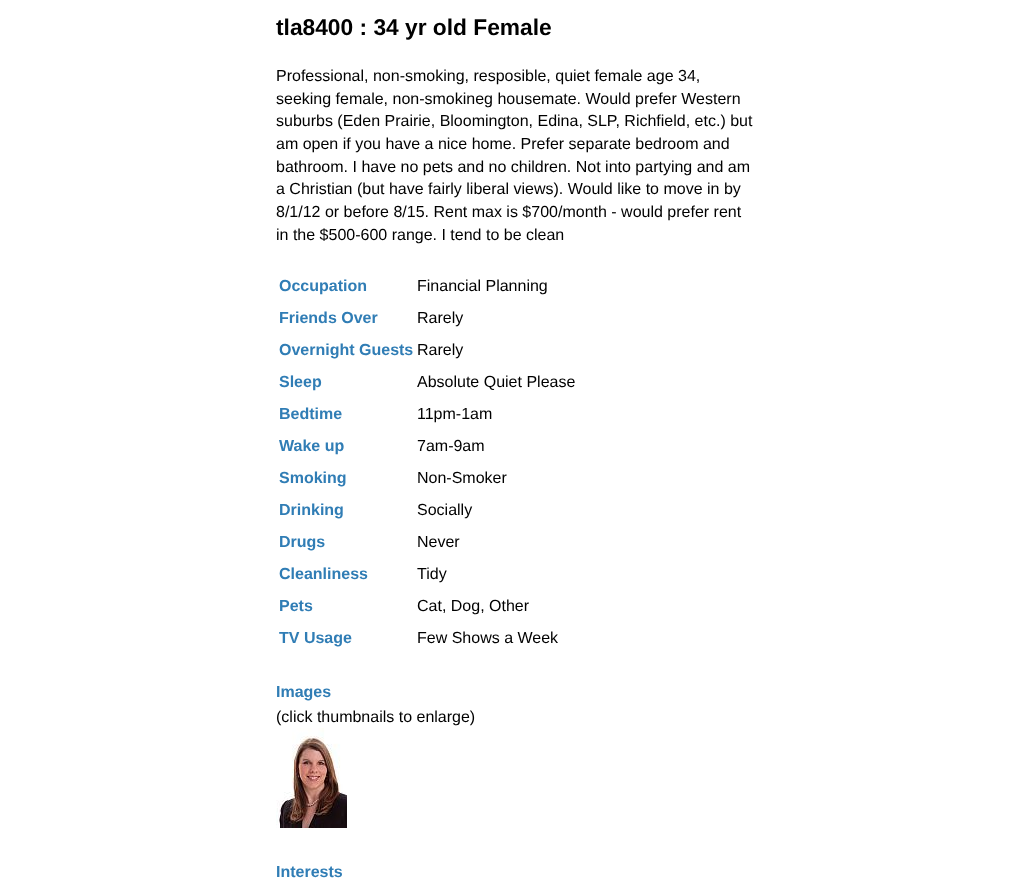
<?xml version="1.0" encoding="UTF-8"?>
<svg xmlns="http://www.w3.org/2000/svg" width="1021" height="895">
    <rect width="100%" height="100%" fill="#FFFFFF"/>
    <text x="276" y="35" font-family="Liberation Sans" font-size="22.75" font-weight="700" fill="#000000">tla8400 : 34 yr old Female</text>
    <text font-family="Liberation Sans" font-size="16" fill="#000000">
        <tspan x="276" y="81">Professional, non-smoking, resposible, quiet female age 34,</tspan>
        <tspan x="276" y="104">seeking female, non-smokineg housemate. Would prefer Western</tspan>
        <tspan x="276" y="126">suburbs (Eden Prairie, Bloomington, Edina, SLP, Richfield, etc.) but</tspan>
        <tspan x="276" y="149">am open if you have a nice home. Prefer separate bedroom and</tspan>
        <tspan x="276" y="172">bathroom. I have no pets and no children. Not into partying and am</tspan>
        <tspan x="276" y="194">a Christian (but have fairly liberal views). Would like to move in by</tspan>
        <tspan x="276" y="217">8/1/12 or before 8/15. Rent max is $700/month - would prefer rent</tspan>
        <tspan x="276" y="240">in the $500-600 range. I tend to be clean</tspan>
    </text>
    <text x="279" y="291" font-family="Liberation Sans" font-size="16" font-weight="700" fill="#307DB5">Occupation</text>
    <text x="417" y="291" font-family="Liberation Sans" font-size="16" fill="#000000">Financial Planning</text>
    <text x="279" y="323" font-family="Liberation Sans" font-size="16" font-weight="700" fill="#307DB5">Friends Over</text>
    <text x="417" y="323" font-family="Liberation Sans" font-size="16" fill="#000000">Rarely</text>
    <text x="279" y="355" font-family="Liberation Sans" font-size="16" font-weight="700" fill="#307DB5">Overnight Guests</text>
    <text x="417" y="355" font-family="Liberation Sans" font-size="16" fill="#000000">Rarely</text>
    <text x="279" y="387" font-family="Liberation Sans" font-size="16" font-weight="700" fill="#307DB5">Sleep</text>
    <text x="417" y="387" font-family="Liberation Sans" font-size="16" fill="#000000">Absolute Quiet Please</text>
    <text x="279" y="419" font-family="Liberation Sans" font-size="16" font-weight="700" fill="#307DB5">Bedtime</text>
    <text x="417" y="419" font-family="Liberation Sans" font-size="16" fill="#000000">11pm-1am</text>
    <text x="279" y="451" font-family="Liberation Sans" font-size="16" font-weight="700" fill="#307DB5">Wake up</text>
    <text x="417" y="451" font-family="Liberation Sans" font-size="16" fill="#000000">7am-9am</text>
    <text x="279" y="483" font-family="Liberation Sans" font-size="16" font-weight="700" fill="#307DB5">Smoking</text>
    <text x="417" y="483" font-family="Liberation Sans" font-size="16" fill="#000000">Non-Smoker</text>
    <text x="279" y="515" font-family="Liberation Sans" font-size="16" font-weight="700" fill="#307DB5">Drinking</text>
    <text x="417" y="515" font-family="Liberation Sans" font-size="16" fill="#000000">Socially</text>
    <text x="279" y="547" font-family="Liberation Sans" font-size="16" font-weight="700" fill="#307DB5">Drugs</text>
    <text x="417" y="547" font-family="Liberation Sans" font-size="16" fill="#000000">Never</text>
    <text x="279" y="579" font-family="Liberation Sans" font-size="16" font-weight="700" fill="#307DB5">Cleanliness</text>
    <text x="417" y="579" font-family="Liberation Sans" font-size="16" fill="#000000">Tidy</text>
    <text x="279" y="611" font-family="Liberation Sans" font-size="16" font-weight="700" fill="#307DB5">Pets</text>
    <text x="417" y="611" font-family="Liberation Sans" font-size="16" fill="#000000">Cat, Dog, Other</text>
    <text x="279" y="643" font-family="Liberation Sans" font-size="16" font-weight="700" fill="#307DB5">TV Usage</text>
    <text x="417" y="643" font-family="Liberation Sans" font-size="16" fill="#000000">Few Shows a Week</text>
    <text x="276" y="697" font-family="Liberation Sans" font-size="16" font-weight="700" fill="#307DB5">Images</text>
    <text x="276" y="722" font-family="Liberation Sans" font-size="16" fill="#000000">(click thumbnails to enlarge)</text>
    <image x="276" y="728" width="71" height="100" href="img_01.png"/>
    <text x="276" y="877" font-family="Liberation Sans" font-size="16" font-weight="700" fill="#307DB5">Interests</text>
</svg>
